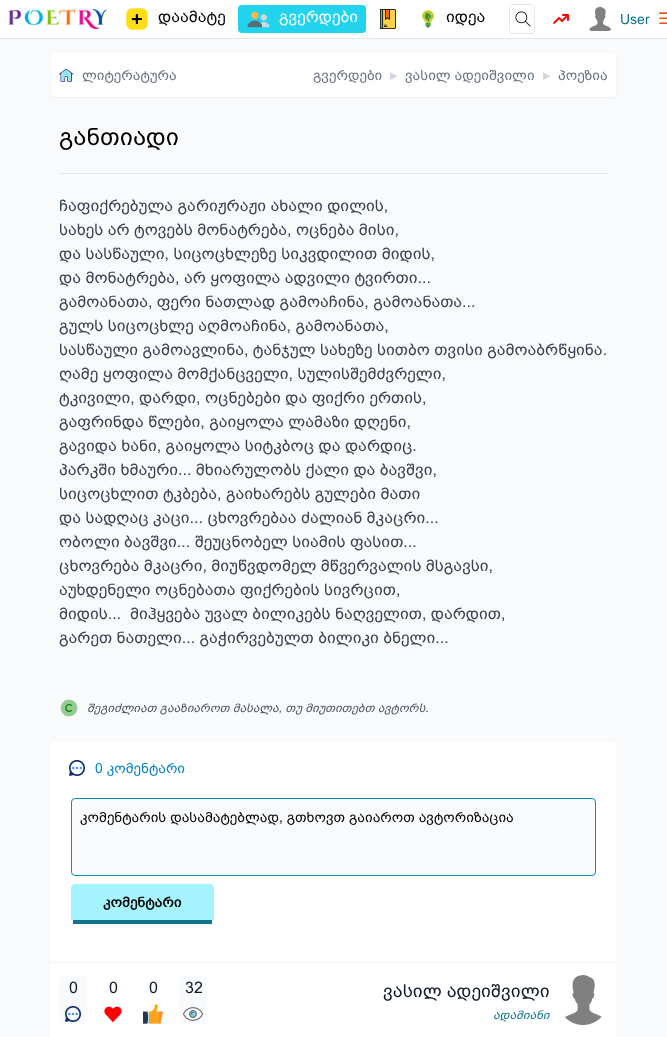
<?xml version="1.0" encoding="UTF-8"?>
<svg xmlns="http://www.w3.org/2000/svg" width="667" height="1037">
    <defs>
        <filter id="blur1" x="-50%" y="-200%" width="200%" height="500%"><feGaussianBlur stdDeviation="1"/></filter>
    </defs>
    <rect width="100%" height="100%" fill="#F9FAFB"/>
    <rect x="0" y="0" width="667" height="38" fill="#FFFFFF"/>
    <rect x="0" y="38" width="667" height="1" fill="#E5E7EB"/>
    <image x="8" y="9" width="99" height="20" href="img_01.png"/>
    <image x="126" y="8" width="22" height="22" href="img_02.png"/>
    <text x="158" y="22" font-family="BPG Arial" font-size="16" fill="#000000">დაამატე</text>
    <rect x="238" y="5" width="128" height="28" rx="4" fill="#22D3EE"/>
    <image x="247" y="11" width="23" height="17" href="img_03.png"/>
    <text x="279" y="22" font-family="BPG Arial" font-size="16" fill="#FFFFFF">გვერდები</text>
    <image x="380" y="9" width="16" height="20" href="img_04.png"/>
    <image x="422" y="9" width="12" height="20" href="img_05.png"/>
    <text x="446" y="22" font-family="BPG Arial" font-size="16" fill="#000000">იდეა</text>
    <rect x="509.5" y="4.5" width="25" height="29" rx="3.5" fill="none" stroke="#E5E7EB"/>
    <image x="515" y="11" width="16" height="16" href="img_06.png"/>
    <image x="553" y="14" width="16" height="10" href="img_07.png"/>
    <image x="589" y="7" width="22" height="24" href="img_08.png"/>
    <text x="620" y="24" font-family="BPG Arial" font-size="14" fill="#0E7490">User</text>
    <text x="658" y="24" font-family="DejaVu Sans" font-size="16" fill="#EA580C">☰</text>
    <rect x="51" y="54" width="565" height="44" rx="4" fill="#000000" fill-opacity="0.05" filter="url(#blur1)"/>
    <rect x="51" y="53" width="565" height="44" rx="4" fill="#FFFFFF"/>
    <image x="59" y="68" width="15" height="14" href="img_09.png"/>
    <text x="82" y="80" font-family="BPG Arial" font-size="14" fill="#6B7280">ლიტერატურა</text>
    <text x="313" y="80" font-family="BPG Arial" font-size="14" fill="#6B7280">გვერდები</text>
    <text x="390" y="80" font-family="DejaVu Sans" font-size="14" font-weight="700" fill="#D1D5DB">▸</text>
    <text x="405" y="80" font-family="BPG Arial" font-size="14" fill="#6B7280">ვასილ ადეიშვილი</text>
    <text x="543" y="80" font-family="DejaVu Sans" font-size="14" font-weight="700" fill="#D1D5DB">▸</text>
    <text x="558" y="80" font-family="BPG Arial" font-size="14" fill="#6B7280">პოეზია</text>
    <text x="59" y="145" font-family="BPG Arial" font-size="24" fill="#000000">განთიადი</text>
    <rect x="59" y="173" width="549" height="1" fill="#E5E7EB"/>
    <text font-family="BPG Arial" font-size="16" fill="#374151" xml:space="preserve"><tspan x="59" y="211">ჩაფიქრებულა გარიჟრაჟი ახალი დილის,</tspan><tspan x="59" y="235">სახეს არ ტოვებს მონატრება, ოცნება მისი,</tspan><tspan x="59" y="259">და სასწაული, სიცოცხლეზე სიკვდილით მიდის,</tspan><tspan x="59" y="283">და მონატრება, არ ყოფილა ადვილი ტვირთი...</tspan><tspan x="59" y="307">გამოანათა, ფერი ნათლად გამოაჩინა, გამოანათა...</tspan><tspan x="59" y="331">გულს სიცოცხლე აღმოაჩინა, გამოანათა,</tspan><tspan x="59" y="355">სასწაული გამოავლინა, ტანჯულ სახეზე სითბო თვისი გამოაბრწყინა.</tspan><tspan x="59" y="379">ღამე ყოფილა მომქანცველი, სულისშემძვრელი,</tspan><tspan x="59" y="403">ტკივილი, დარდი, ოცნებები და ფიქრი ერთის,</tspan><tspan x="59" y="427">გაფრინდა წლები, გაიყოლა ლამაზი დღენი,</tspan><tspan x="59" y="451">გავიდა ხანი, გაიყოლა სიტკბოც და დარდიც.</tspan><tspan x="59" y="475">პარკში ხმაური... მხიარულობს ქალი და ბავშვი,</tspan><tspan x="59" y="499">სიცოცხლით ტკბება, გაიხარებს გულები მათი</tspan><tspan x="59" y="523">და სადღაც კაცი... ცხოვრებაა ძალიან მკაცრი...</tspan><tspan x="59" y="547">ობოლი ბავშვი... შეუცნობელ სიამის ფასით...</tspan><tspan x="59" y="571">ცხოვრება მკაცრი, მიუწვდომელ მწვერვალის მსგავსი,</tspan><tspan x="59" y="595">აუხდენელი ოცნებათა ფიქრების სივრცით,</tspan><tspan x="59" y="619">მიდის...  მიჰყვება უვალ ბილიკებს ნაღველით, დარდით,</tspan><tspan x="59" y="643">გარეთ ნათელი... გაჭირვებულთ ბილიკი ბნელი...</tspan></text>
    <image x="60" y="699" width="18" height="18" href="img_10.png"/>
    <text x="87" y="712" font-family="BPG Arial" font-size="12" font-style="italic" fill="#4B5563">შეგიძლიათ გააზიაროთ მასალა, თუ მიუთითებთ ავტორს.</text>
    <rect x="51" y="742" width="565" height="226" rx="4" fill="#FFFFFF"/>
    <image x="69" y="760" width="16" height="16" href="img_11.png"/>
    <text x="95" y="773" font-family="BPG Arial" font-size="14" fill="#0284C7">0 კომენტარი</text>
    <rect x="71.5" y="798.5" width="524" height="77" rx="3.5" fill="#F9FAFB" stroke="#0891B2"/>
    <text x="80" y="822" font-family="BPG Arial" font-size="14" fill="#000000">კომენტარის დასამატებლად, გთხოვთ გაიაროთ ავტორიზაცია</text>
    <path d="M 75 884 H 210 C 212 884 214 886 214 888 V 920 H 71 V 888 C 71 886 73 884 75 884 Z" fill="#A5F3FC"/>
    <rect x="73" y="920" width="139" height="4" fill="#0E7490"/>
    <text x="103" y="907" font-family="BPG Arial" font-size="14" font-weight="700" fill="#000000">კომენტარი</text>
    <rect x="51" y="966" width="565" height="71" fill="#FFFFFF"/>
    <rect x="51" y="962" width="565" height="1" fill="#F3F4F6"/>
    <rect x="59" y="976" width="28" height="48" rx="4" fill="#F9FAFB"/>
    <text x="69" y="993" font-family="BPG Arial" font-size="16" fill="#111827">0</text>
    <image x="65" y="1006" width="16" height="16" href="img_12.png"/>
    <text x="109" y="993" font-family="BPG Arial" font-size="16" fill="#111827">0</text>
    <image x="104" y="1006" width="18" height="16" href="img_13.png"/>
    <text x="149" y="993" font-family="BPG Arial" font-size="16" fill="#111827">0</text>
    <image x="143" y="1004" width="20" height="20" href="img_14.png"/>
    <rect x="179" y="976" width="28" height="48" rx="4" fill="#F9FAFB"/>
    <text x="185" y="993" font-family="BPG Arial" font-size="16" fill="#111827">32</text>
    <image x="183" y="1007" width="20" height="14" href="img_15.png"/>
    <text x="383" y="997" font-family="BPG Arial" font-size="18" fill="#111827">ვასილ ადეიშვილი</text>
    <text x="493" y="1019" font-family="BPG Arial" font-size="12" font-style="italic" fill="#0E7490">ადამიანი</text>
    <image x="565" y="975" width="37" height="50" href="img_16.png"/>
</svg>
